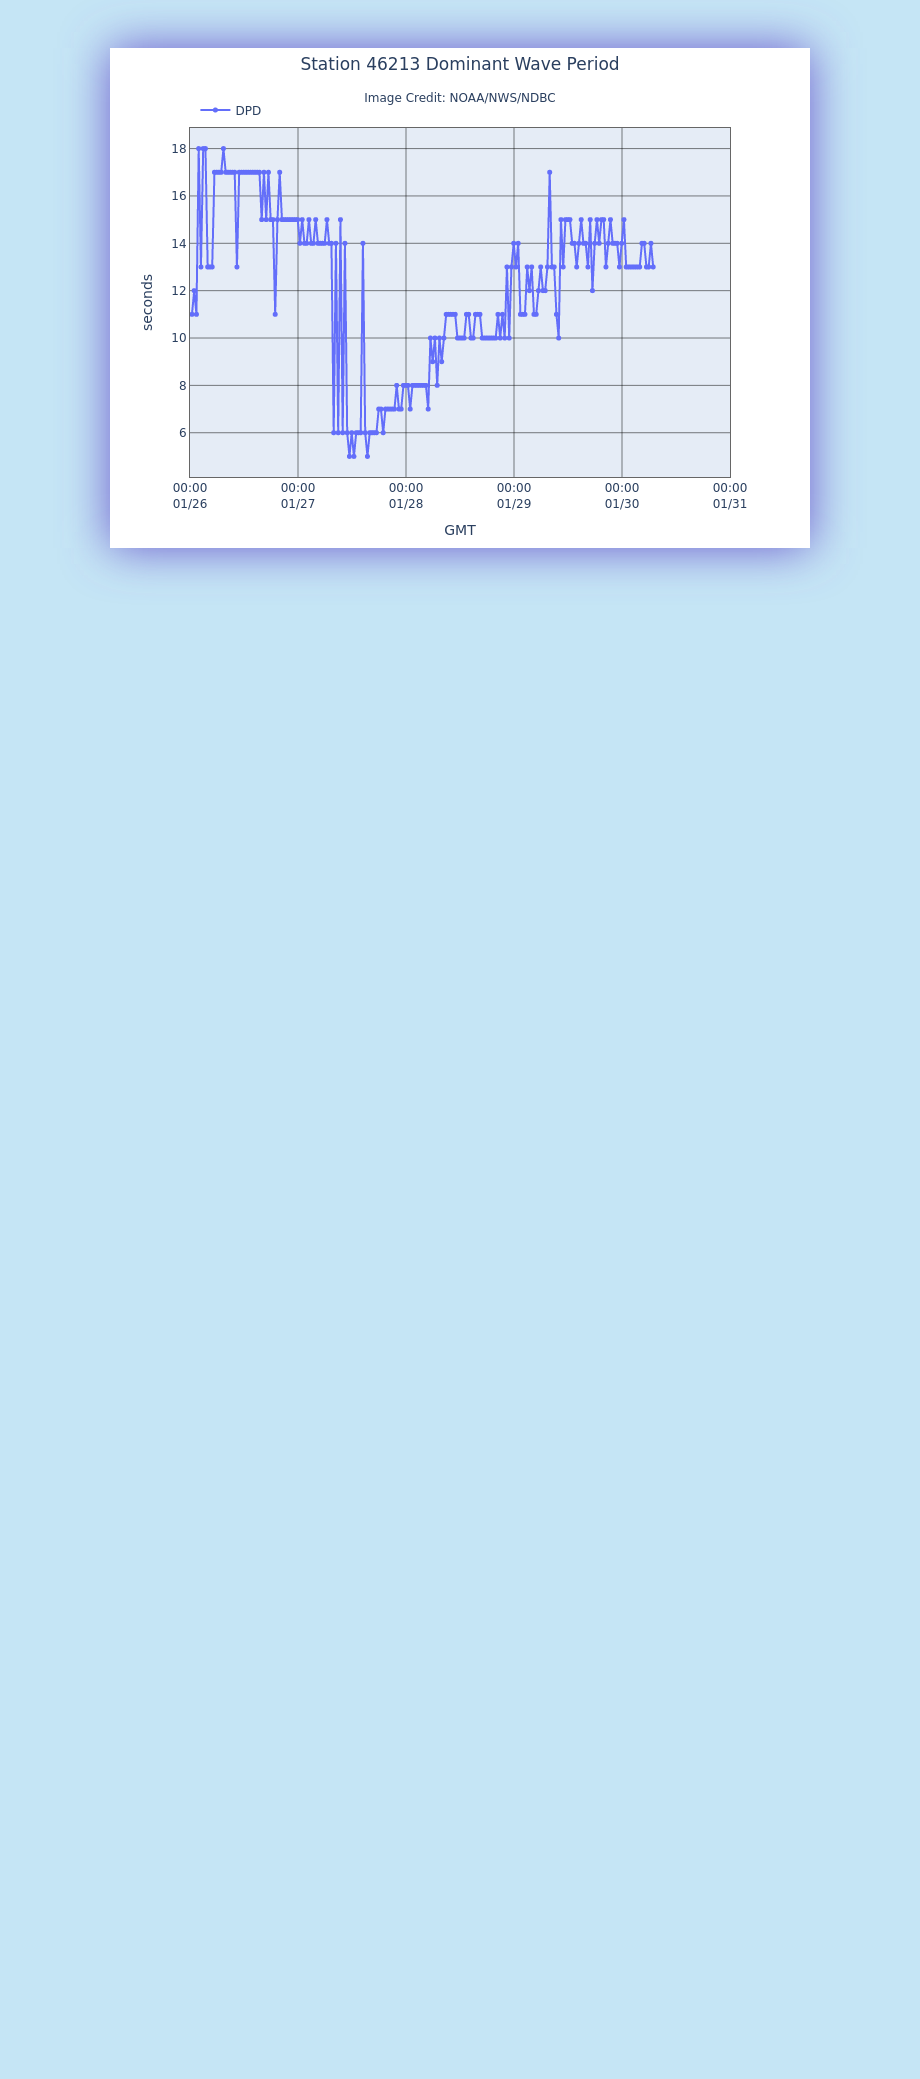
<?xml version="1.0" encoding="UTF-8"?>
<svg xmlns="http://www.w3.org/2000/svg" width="920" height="2079">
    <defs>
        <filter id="blur1" x="-50%" y="-200%" width="200%" height="500%"><feGaussianBlur stdDeviation="24"/></filter>
    </defs>
    <rect width="100%" height="100%" fill="#C5E5F5"/>
    <rect x="110" y="48" width="700" height="500" fill="#6A5ACD" filter="url(#blur1)"/>
    <image x="110" y="48" width="700" height="500" href="img_01.png"/>
</svg>
